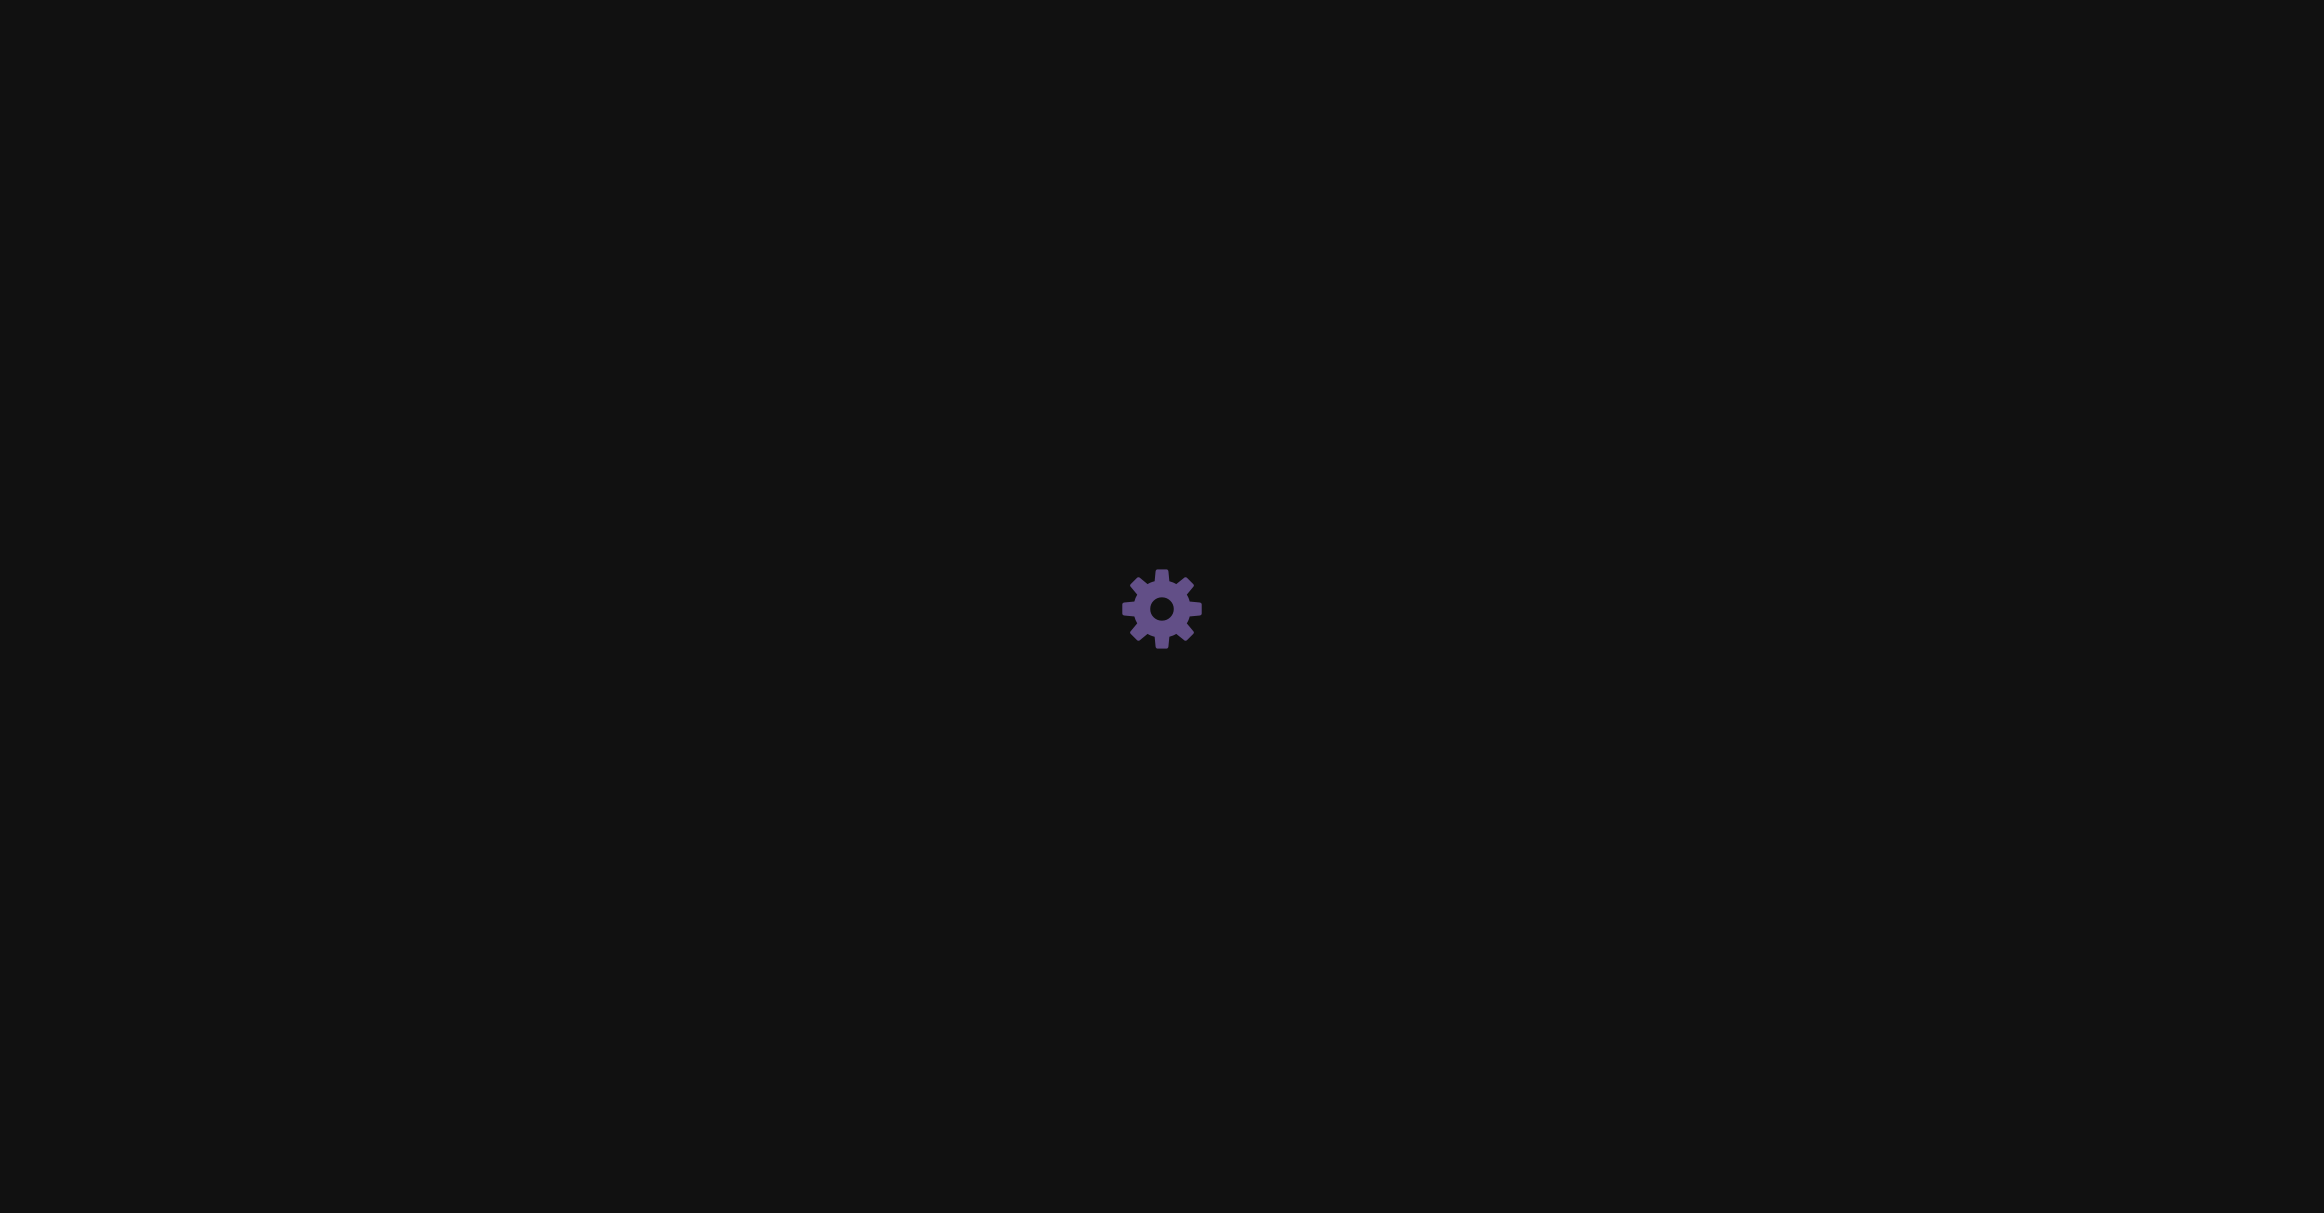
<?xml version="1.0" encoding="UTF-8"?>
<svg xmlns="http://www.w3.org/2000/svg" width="2324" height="1213">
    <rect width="100%" height="100%" fill="#111111"/>
    <image x="1122" y="569" width="80" height="80" href="img_01.png"/>
</svg>
